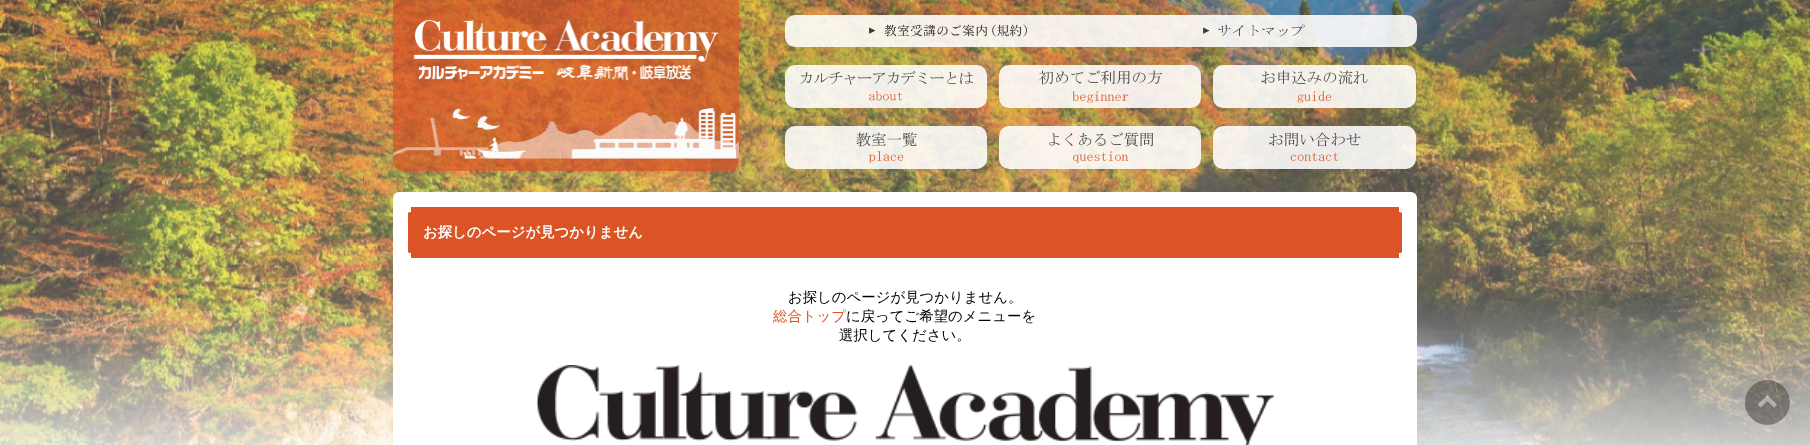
<?xml version="1.0" encoding="UTF-8"?>
<svg xmlns="http://www.w3.org/2000/svg" width="1810" height="445">
    <rect width="100%" height="100%" fill="#FFFFFF"/>
    <image x="0" y="0" width="1810" height="445" href="img_01.png"/>
    <path d="M 393 0 H 739 V 161 C 739 166.5 734.5 171 729 171 H 403 C 397.5 171 393 166.5 393 161 Z" fill="#DB5425" fill-opacity="0.7"/>
    <image x="393" y="20" width="346" height="139" href="img_02.png"/>
    <rect x="785" y="15" width="632" height="32" rx="10" fill="#FFFFFF" fill-opacity="0.88"/>
    <image x="869" y="24" width="158" height="13" href="img_03.png"/>
    <image x="1203" y="24" width="102" height="13" href="img_04.png"/>
    <rect x="785" y="65" width="202" height="43" rx="10" fill="#FFFFFF" fill-opacity="0.88"/>
    <image x="800" y="71" width="173" height="30" href="img_05.png"/>
    <rect x="999" y="65" width="202" height="43" rx="10" fill="#FFFFFF" fill-opacity="0.88"/>
    <image x="1039" y="70" width="123" height="33" href="img_06.png"/>
    <rect x="1213" y="65" width="203" height="43" rx="10" fill="#FFFFFF" fill-opacity="0.88"/>
    <image x="1261" y="70" width="107" height="33" href="img_07.png"/>
    <rect x="785" y="126" width="202" height="43" rx="10" fill="#FFFFFF" fill-opacity="0.88"/>
    <image x="856" y="132" width="61" height="31" href="img_08.png"/>
    <rect x="999" y="126" width="202" height="43" rx="10" fill="#FFFFFF" fill-opacity="0.88"/>
    <image x="1049" y="132" width="105" height="31" href="img_09.png"/>
    <rect x="1213" y="126" width="203" height="43" rx="10" fill="#FFFFFF" fill-opacity="0.88"/>
    <image x="1269" y="132" width="92" height="29" href="img_10.png"/>
    <rect x="393" y="192" width="1024" height="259" rx="6" fill="#FFFFFF"/>
    <path d="M 414 212 H 1396 C 1399 212 1402 212 1402 213 V 252 C 1402 253 1399 253 1396 253 H 414 C 411 253 408 253 408 252 V 213 C 408 212 411 212 414 212 Z" fill="#DB5425"/>
    <rect x="411" y="207" width="988" height="5" fill="#DB5425"/>
    <rect x="411" y="253" width="988" height="5" fill="#DB5425"/>
    <text x="423" y="237" font-family="WenQuanYi Zen Hei" font-size="14.4" font-weight="700" fill="#FFFFFF">お探しのページが見つかりません</text>
    <text x="788" y="302" font-family="WenQuanYi Zen Hei" font-size="14.4" font-weight="500" fill="#000000">お探しのページが見つかりません。</text>
    <text x="773" y="321" font-family="WenQuanYi Zen Hei" font-size="14.4" font-weight="500" fill="#DB5425">総合トップ</text>
    <text x="846" y="321" font-family="WenQuanYi Zen Hei" font-size="14.4" font-weight="500" fill="#000000">に戻ってご希望のメニューを</text>
    <text x="839" y="340" font-family="WenQuanYi Zen Hei" font-size="14.4" font-weight="500" fill="#000000">選択してください。</text>
    <image x="536" y="365" width="739" height="80" href="img_11.png"/>
    <image x="1745" y="380" width="45" height="45" href="img_12.png"/>
</svg>
